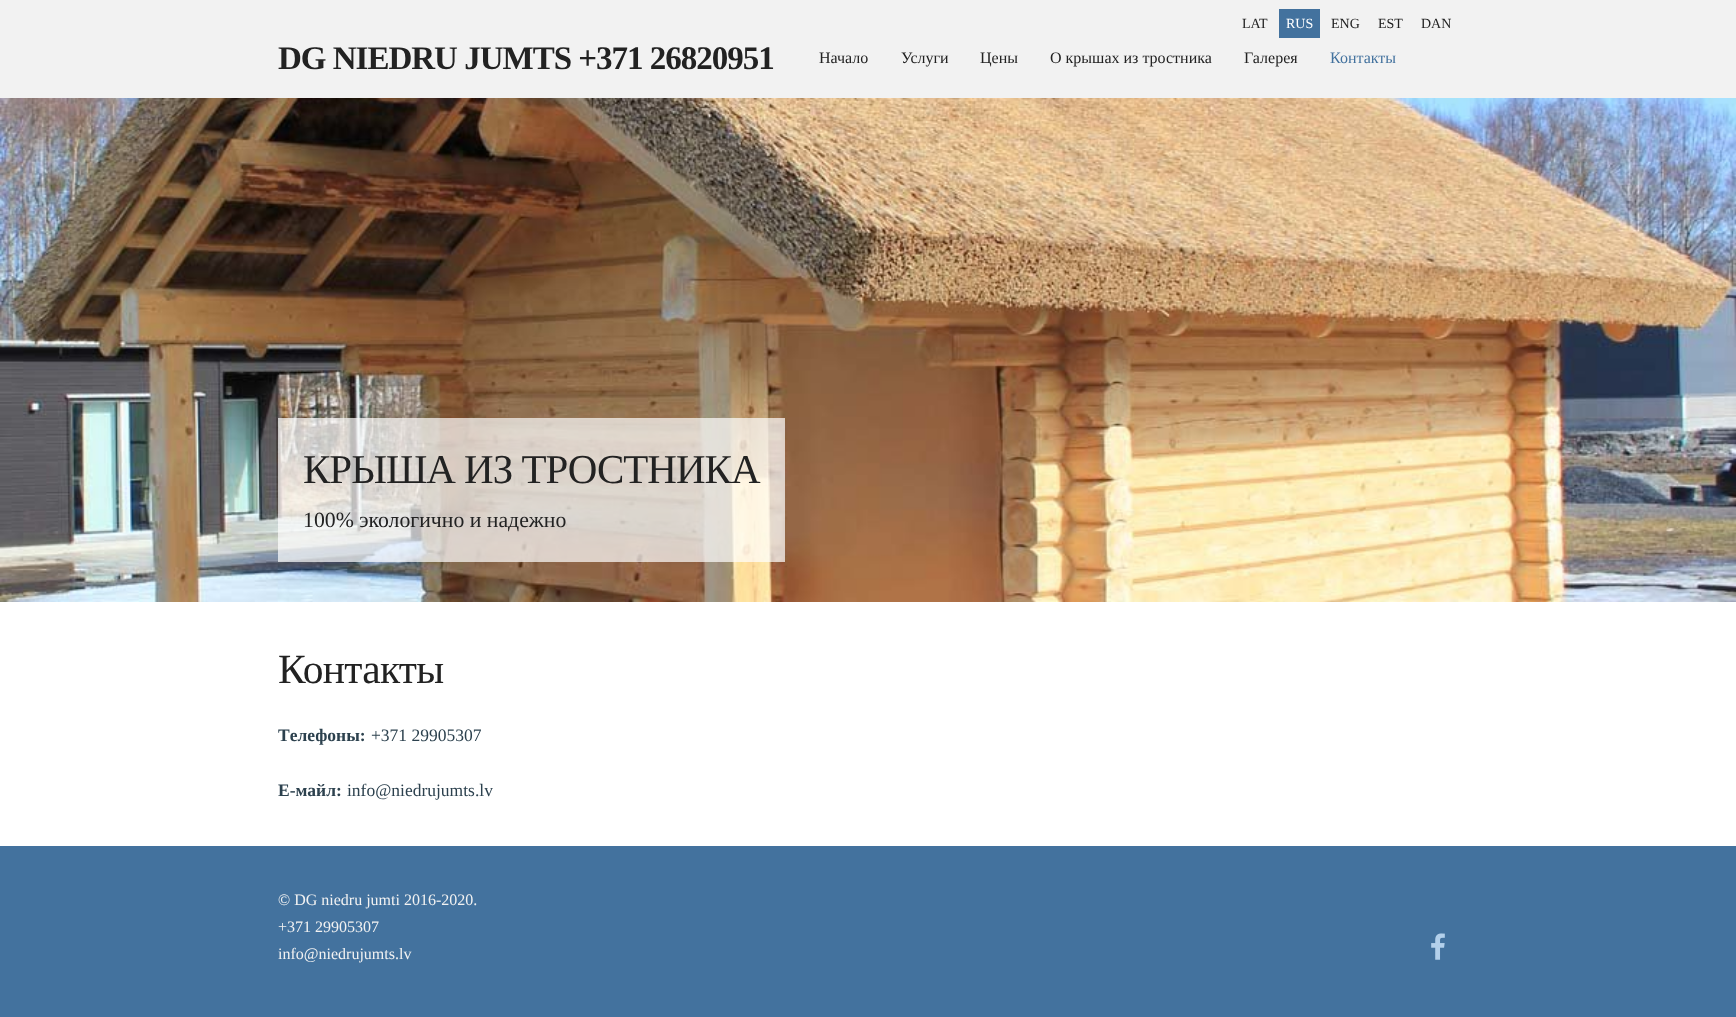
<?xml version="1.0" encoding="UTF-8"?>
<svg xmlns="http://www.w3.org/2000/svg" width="1736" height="1017">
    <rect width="100%" height="100%" fill="#43729E"/>
    <rect x="0" y="602" width="1736" height="244" fill="#FFFFFF"/>
    <rect x="0" y="0" width="1736" height="98" fill="#F2F2F2"/>
    <text x="1242" y="28" font-family="Liberation Serif" font-size="14" fill="#222222">LAT</text>
    <rect x="1279" y="9" width="41" height="29" fill="#43729E"/>
    <text x="1286" y="28" font-family="Liberation Serif" font-size="14" fill="#FFFFFF">RUS</text>
    <text x="1331" y="28" font-family="Liberation Serif" font-size="14" fill="#222222">ENG</text>
    <text x="1378" y="28" font-family="Liberation Serif" font-size="14" fill="#222222">EST</text>
    <text x="1421" y="28" font-family="Liberation Serif" font-size="14" fill="#222222">DAN</text>
    <text x="278" y="69" font-family="Liberation Serif" font-size="33" font-weight="700" letter-spacing="-1" fill="#222222">DG NIEDRU JUMTS +371 26820951</text>
    <text x="819" y="63" font-family="Liberation Serif" font-size="16" fill="#222222">Начало</text>
    <text x="901" y="63" font-family="Liberation Serif" font-size="16" fill="#222222">Услуги</text>
    <text x="980" y="63" font-family="Liberation Serif" font-size="16" fill="#222222">Цены</text>
    <text x="1050" y="63" font-family="Liberation Serif" font-size="16" fill="#222222">О крышах из тростника</text>
    <text x="1244" y="63" font-family="Liberation Serif" font-size="16" fill="#222222">Галерея</text>
    <text x="1330" y="63" font-family="Liberation Serif" font-size="16" fill="#43729E">Контакты</text>
    <image x="0" y="98" width="1736" height="504" href="img_01.png"/>
    <rect x="278" y="418" width="507" height="144" fill="#FFFFFF" fill-opacity="0.7"/>
    <text x="303" y="483" font-family="Liberation Serif" font-size="41" letter-spacing="-1" fill="#222222">КРЫША ИЗ ТРОСТНИКА</text>
    <text x="303" y="527" font-family="Liberation Serif" font-size="21.75" fill="#222222">100% экологично и надежно</text>
    <text x="278" y="683" font-family="Liberation Serif" font-size="41.5" letter-spacing="-0.75" fill="#222222">Контакты</text>
    <text x="278" y="741" font-family="Liberation Serif" font-size="17.5" font-weight="700" fill="#2C414E">Tелефоны:</text>
    <text x="371" y="741" font-family="Liberation Serif" font-size="17.5" fill="#2C414E">+371 29905307</text>
    <text x="278" y="796" font-family="Liberation Serif" font-size="17.5" font-weight="700" fill="#2C414E">E-майл:</text>
    <text x="347" y="796" font-family="Liberation Serif" font-size="17.5" fill="#2C414E">info@niedrujumts.lv</text>
    <text font-family="Liberation Serif" font-size="16" fill="#F2F2F2">
        <tspan x="278" y="905">© DG niedru jumti 2016-2020.</tspan>
        <tspan x="278" y="932">+371 29905307</tspan>
        <tspan x="278" y="959">info@niedrujumts.lv</tspan>
    </text>
    <image x="1431" y="933" width="14" height="27" href="img_02.png"/>
</svg>
